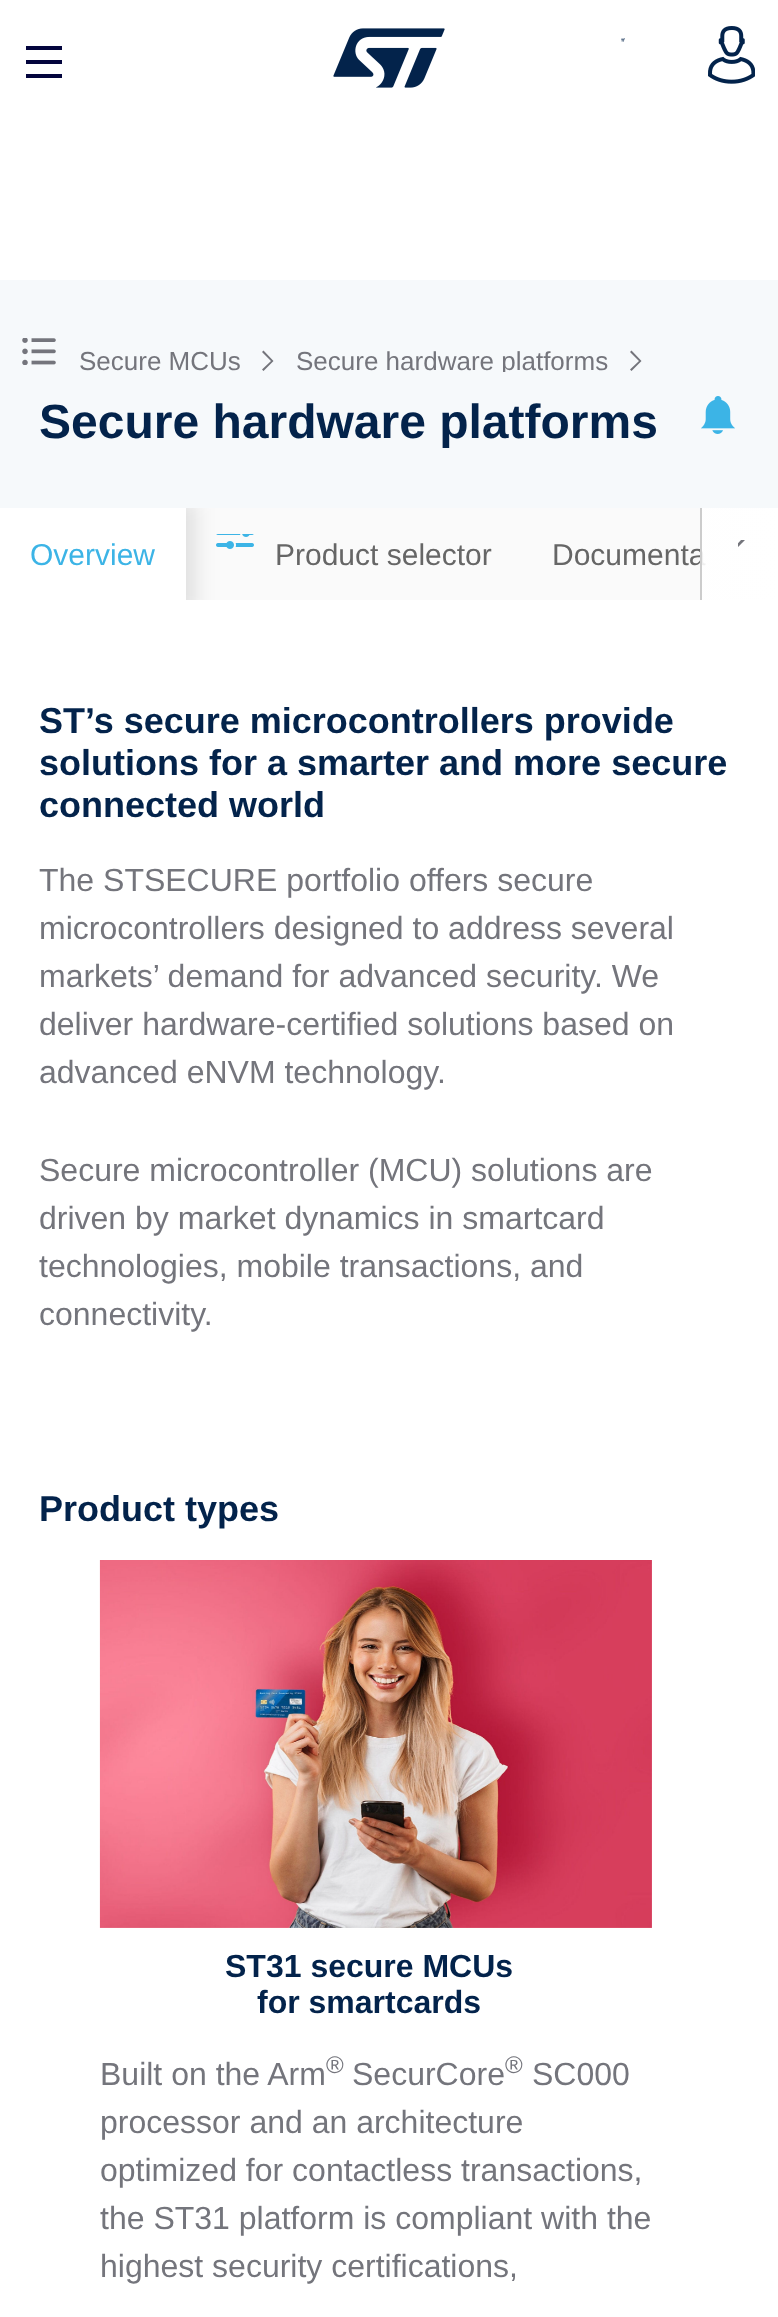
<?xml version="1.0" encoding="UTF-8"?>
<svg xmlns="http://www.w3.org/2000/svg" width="778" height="2317">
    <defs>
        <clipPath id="clip1"><rect x="78" y="322" width="680" height="50"/></clipPath>
        <clipPath id="clip2"><rect x="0" y="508" width="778" height="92"/></clipPath>
        <filter id="blur1" x="-50%" y="-200%" width="200%" height="500%"><feGaussianBlur stdDeviation="10"/></filter>
        <linearGradient id="g1" gradientUnits="userSpaceOnUse" x1="702" y1="554" x2="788" y2="554"><stop offset="0" stop-color="#FFFFFF" stop-opacity="0.9"/><stop offset="1" stop-color="#FFFFFF"/></linearGradient>
        <clipPath id="clip3"><rect x="738" y="540" width="16" height="28"/></clipPath>
    </defs>
    <rect width="100%" height="100%" fill="#FFFFFF"/>
    <path d="M 26 46 H 62 V 50 H 26 Z M 26 60 H 62 V 64 H 26 Z M 26 74 H 62 V 78 H 26 Z" fill="#03053D"/>
    <image x="333" y="28" width="112" height="60" href="img_01.png"/>
    <image x="621" y="38" width="4" height="4" href="img_02.png"/>
    <image x="708" y="26" width="47" height="58" href="img_03.png"/>
    <rect x="0" y="280" width="778" height="228" fill="#F6F9FB"/>
    <image x="22" y="338" width="34" height="27" href="img_04.png"/>
    <text x="79" y="370" font-family="Liberation Sans" font-size="26" fill="#74757C">Secure MCUs</text>
    <path d="M 271 361 L 262 369.5 L 263.5 371 L 273.5 361 L 263.5 350.5 L 262 352 Z" fill="#74757C"/>
    <g clip-path="url(#clip1)">
        <text x="296" y="370" font-family="Liberation Sans" font-size="26" fill="#74757C">Secure hardware platforms</text>
    </g>
    <path d="M 639 361 L 630 369.5 L 631.5 371 L 641.5 361 L 631.5 350.5 L 630 352 Z" fill="#74757C"/>
    <text x="39" y="438" font-family="Liberation Sans" font-size="48" font-weight="700" fill="#03234B">Secure hardware platforms</text>
    <image x="701" y="396" width="34" height="38" href="img_05.png"/>
    <rect x="186" y="508" width="592" height="92" fill="#FAFAFA"/>
    <g clip-path="url(#clip2)">
        <rect x="-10" y="502" width="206" height="112" fill="#000000" fill-opacity="0.1" filter="url(#blur1)"/>
    </g>
    <rect x="0" y="508" width="186" height="92" fill="#FFFFFF"/>
    <text x="30" y="565" font-family="Liberation Sans" font-size="30" fill="#3CB4E6">Overview</text>
    <image x="216" y="534" width="38" height="15" href="img_06.png"/>
    <text x="275" y="565" font-family="Liberation Sans" font-size="30" fill="#666666">Product selector</text>
    <text x="552" y="565" font-family="Liberation Sans" font-size="30" fill="#666666">Documenta</text>
    <rect x="702" y="508" width="76" height="92" fill="url(#g1)"/>
    <rect x="700" y="508" width="2" height="92" fill="#CCCCCC"/>
    <g clip-path="url(#clip3)">
        <path d="M 741.5 539.5 L 730.5 551 L 732 553 L 745.5 539.5 L 732 526.5 L 730.5 528.5 Z" fill="#74757C"/>
    </g>
    <text font-family="Liberation Sans" font-size="36" font-weight="700" fill="#03234B">
        <tspan x="39" y="733">ST’s secure microcontrollers provide</tspan>
        <tspan x="39" y="775">solutions for a smarter and more secure</tspan>
        <tspan x="39" y="817">connected world</tspan>
    </text>
    <text font-family="Liberation Sans" font-size="32" fill="#74757C">
        <tspan x="39" y="891">The STSECURE portfolio offers secure</tspan>
        <tspan x="39" y="939">microcontrollers designed to address several</tspan>
        <tspan x="39" y="987">markets’ demand for advanced security. We</tspan>
        <tspan x="39" y="1035">deliver hardware-certified solutions based on</tspan>
        <tspan x="39" y="1083">advanced eNVM technology.</tspan>
    </text>
    <text font-family="Liberation Sans" font-size="32" fill="#74757C">
        <tspan x="39" y="1181">Secure microcontroller (MCU) solutions are</tspan>
        <tspan x="39" y="1229">driven by market dynamics in smartcard</tspan>
        <tspan x="39" y="1277">technologies, mobile transactions, and</tspan>
        <tspan x="39" y="1325">connectivity.</tspan>
    </text>
    <text x="39" y="1521" font-family="Liberation Sans" font-size="36" font-weight="700" fill="#03234B">Product types</text>
    <image x="99" y="1560" width="553" height="368" href="img_07.png"/>
    <text x="225" y="1977" font-family="Liberation Sans" font-size="32" font-weight="700" fill="#03234B">ST31 secure MCUs</text>
    <text x="257" y="2013" font-family="Liberation Sans" font-size="32" font-weight="700" fill="#03234B">for smartcards</text>
    <text x="100" y="2085" font-family="Liberation Sans" font-size="32" fill="#74757C">Built on the Arm</text>
    <text x="326" y="2073" font-family="Liberation Sans" font-size="24" fill="#74757C">®</text>
    <text x="352" y="2085" font-family="Liberation Sans" font-size="32" fill="#74757C">SecurCore</text>
    <text x="505" y="2073" font-family="Liberation Sans" font-size="24" fill="#74757C">®</text>
    <text x="532" y="2085" font-family="Liberation Sans" font-size="32" fill="#74757C">SC000</text>
    <text font-family="Liberation Sans" font-size="32" fill="#74757C">
        <tspan x="100" y="2133">processor and an architecture</tspan>
        <tspan x="100" y="2181">optimized for contactless transactions,</tspan>
        <tspan x="100" y="2229">the ST31 platform is compliant with the</tspan>
        <tspan x="100" y="2277">highest security certifications,</tspan>
    </text>
</svg>
